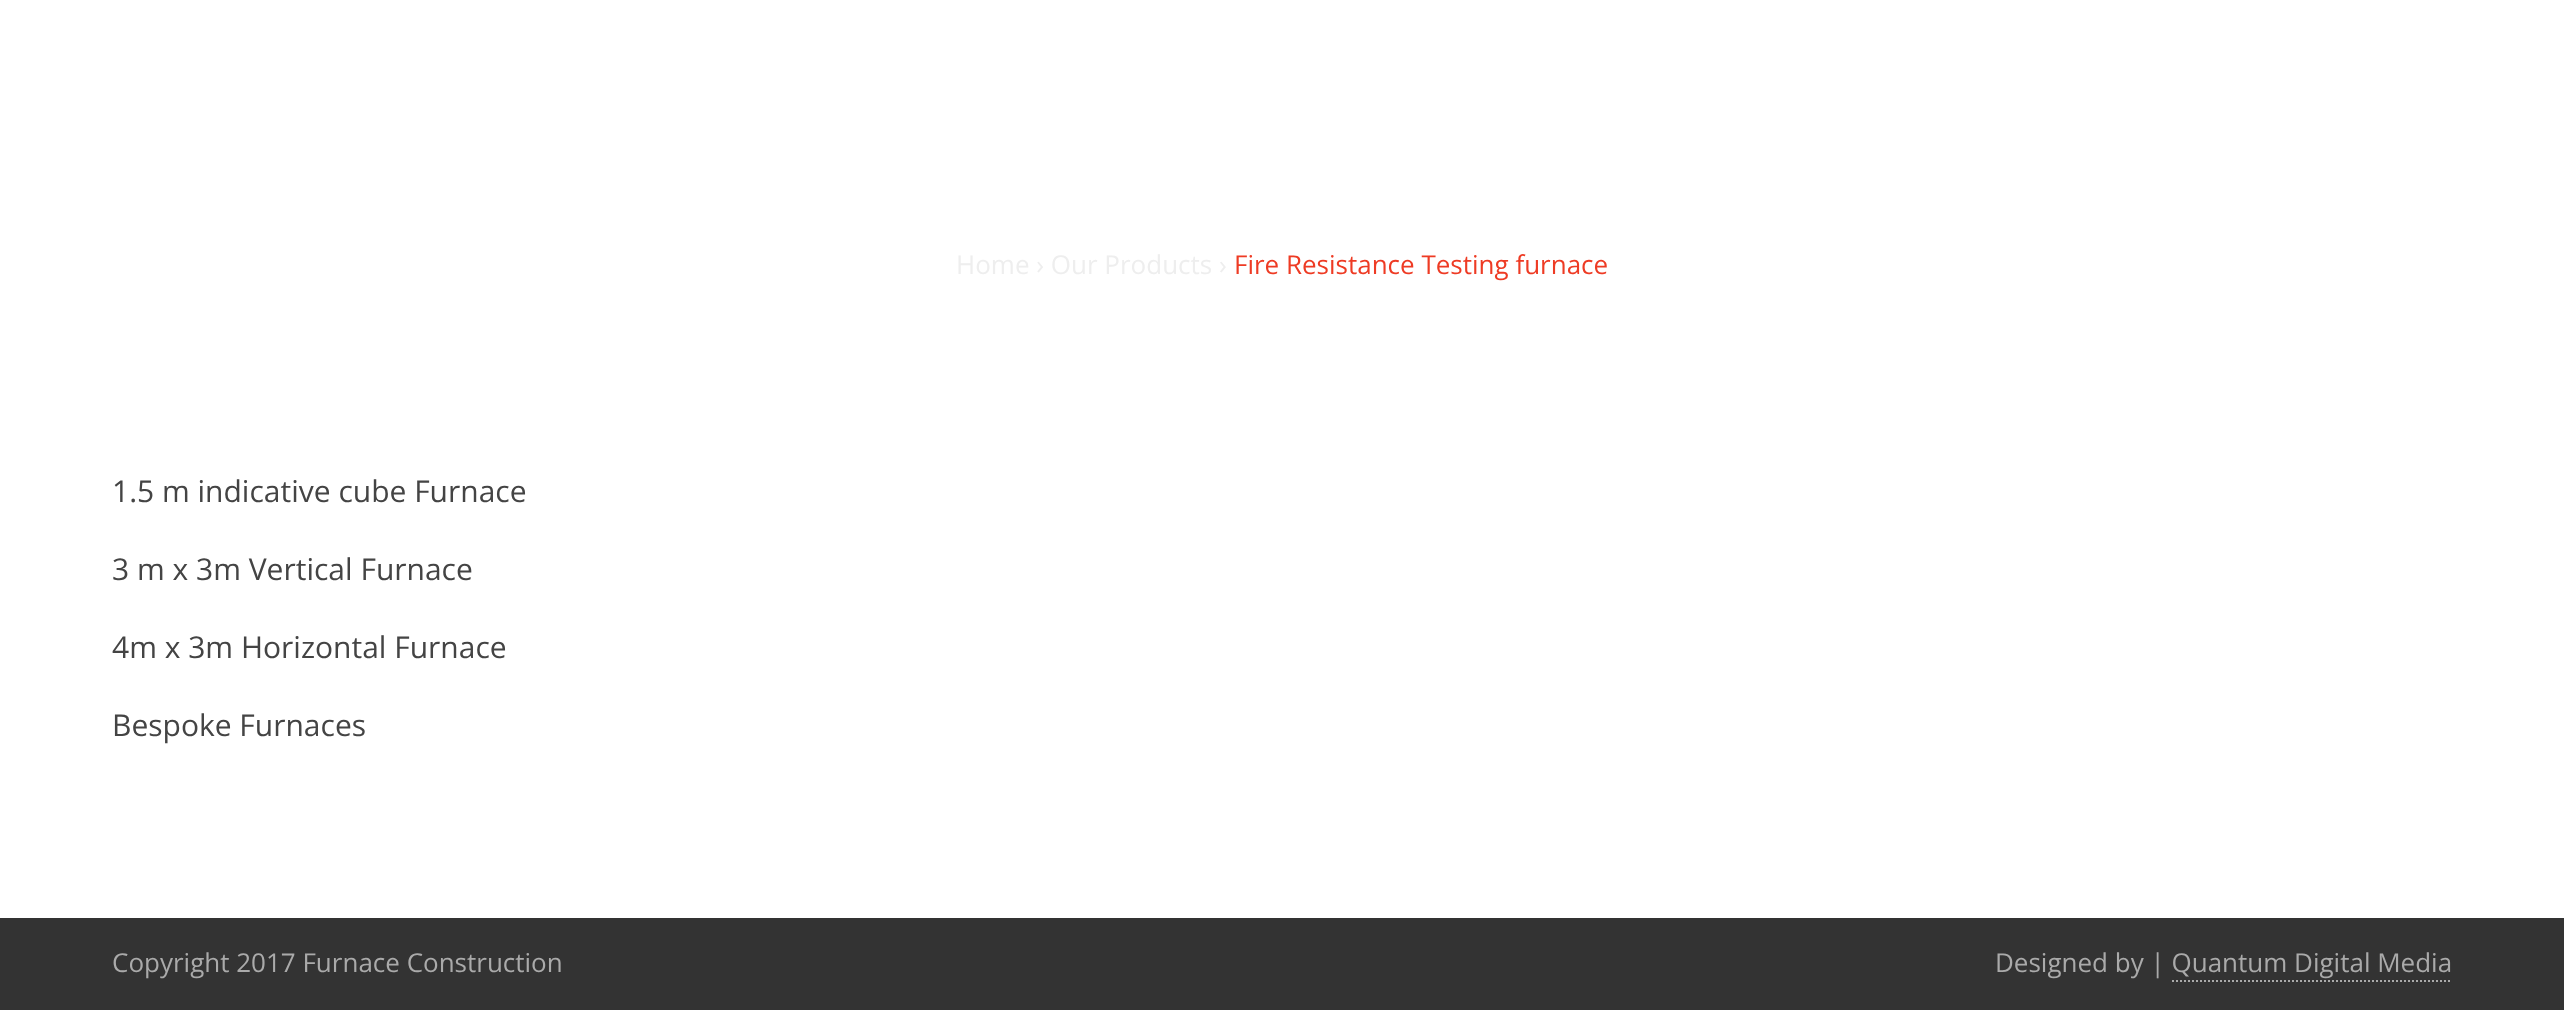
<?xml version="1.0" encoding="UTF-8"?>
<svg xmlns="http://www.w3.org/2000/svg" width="2564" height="1010">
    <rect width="100%" height="100%" fill="#FFFFFF"/>
    <text x="956" y="274" font-family="Open Sans" font-size="26" fill="#EEEEEE">Home › Our Products ›</text>
    <text x="1234" y="274" font-family="Open Sans" font-size="26" fill="#EE3B24">Fire Resistance Testing furnace</text>
    <text x="112" y="502" font-family="Open Sans" font-size="30" fill="#444444">1.5 m indicative cube Furnace</text>
    <text x="112" y="580" font-family="Open Sans" font-size="30" fill="#444444">3 m x 3m Vertical Furnace</text>
    <text x="112" y="658" font-family="Open Sans" font-size="30" fill="#444444">4m x 3m Horizontal Furnace</text>
    <text x="112" y="736" font-family="Open Sans" font-size="30" fill="#444444">Bespoke Furnaces</text>
    <rect x="0" y="918" width="2564" height="92" fill="#333333"/>
    <text x="112" y="972" font-family="Open Sans" font-size="26" fill="#AAAAAA">Copyright 2017 Furnace Construction</text>
    <text x="1995" y="972" font-family="Open Sans" font-size="26" fill="#AAAAAA">Designed by | Quantum Digital Media</text>
    <path d="M 2172 981 H 2452" fill="none" stroke="#AAAAAA" stroke-width="2" stroke-dasharray="2 2"/>
</svg>
